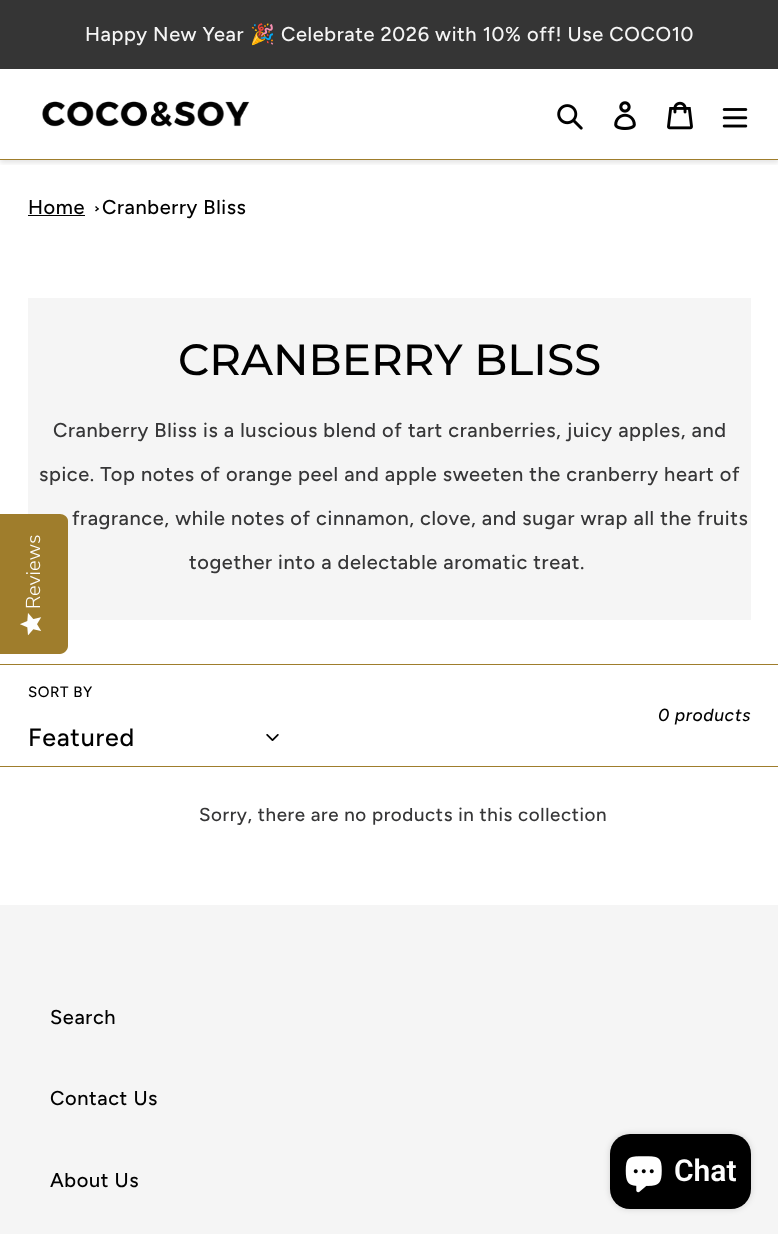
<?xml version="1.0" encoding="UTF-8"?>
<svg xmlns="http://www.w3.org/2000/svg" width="778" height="1234">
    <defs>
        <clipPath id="clip1"><rect x="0" y="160" width="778" height="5"/></clipPath>
        <filter id="blur1" x="-50%" y="-200%" width="200%" height="500%"><feGaussianBlur stdDeviation="2.5"/></filter>
        <filter id="blur2" x="-50%" y="-200%" width="200%" height="500%"><feGaussianBlur stdDeviation="3"/></filter>
    </defs>
    <rect width="100%" height="100%" fill="#FFFFFF"/>
    <g clip-path="url(#clip1)">
        <rect x="0" y="3" width="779" height="160" fill="#000000" fill-opacity="0.1" filter="url(#blur1)"/>
    </g>
    <rect x="0" y="0" width="778" height="69" fill="#353535"/>
    <text x="85" y="41" font-family="Figtree" font-size="20" font-weight="500" letter-spacing="0.6" fill="#F5F5F5">Happy New Year</text>
    <text x="250" y="41" font-family="Noto Color Emoji" font-size="20" letter-spacing="0.6" fill="#F5F5F5">🎉</text>
    <text x="281" y="41" font-family="Figtree" font-size="20" font-weight="500" letter-spacing="0.6" fill="#F5F5F5">Celebrate 2026 with 10% off! Use COCO10</text>
    <rect x="0" y="159" width="778" height="1" fill="#9F7D2C"/>
    <image x="42" y="101" width="208" height="26" href="img_01.png"/>
    <image x="557" y="104" width="26" height="26" href="img_02.png"/>
    <image x="614" y="101" width="22" height="29" href="img_03.png"/>
    <image x="667" y="101" width="26" height="29" href="img_04.png"/>
    <image x="722" y="108" width="26" height="20" href="img_05.png"/>
    <text x="28" y="214" font-family="Figtree" font-size="20" font-weight="500" letter-spacing="0.6" fill="#000000">Home</text>
    <rect x="28" y="215" width="57" height="1" fill="#000000"/>
    <path d="M 96 206 L 99 209 L 98 209.5 L 95 207 Z" fill="#000000"/>
    <path d="M 98 208 L 99 209 L 96 211.5 L 95 210.5 Z" fill="#000000"/>
    <text x="102" y="214" font-family="Figtree" font-size="20" font-weight="500" letter-spacing="0.6" fill="#000000">Cranberry Bliss</text>
    <rect x="28" y="298" width="723" height="322" fill="#F5F5F5"/>
    <text x="178" y="375" font-family="Montserrat" font-size="43.75" font-weight="500" fill="#000000">CRANBERRY BLISS</text>
    <text x="53" y="437" font-family="Figtree" font-size="20" font-weight="500" letter-spacing="0.6" fill="#363637">Cranberry Bliss is a luscious blend of tart cranberries, juicy apples, and</text>
    <text x="39" y="481" font-family="Figtree" font-size="20" font-weight="500" letter-spacing="0.6" fill="#363637">spice. Top notes of orange peel and apple sweeten the cranberry heart of</text>
    <text x="72" y="525" font-family="Figtree" font-size="20" font-weight="500" letter-spacing="0.6" fill="#363637">fragrance, while notes of cinnamon, clove, and sugar wrap all the fruits</text>
    <text x="189" y="569" font-family="Figtree" font-size="20" font-weight="500" letter-spacing="0.6" fill="#363637">together into a delectable aromatic treat.</text>
    <rect x="0" y="664" width="778" height="1" fill="#9F7D2C"/>
    <rect x="0" y="766" width="778" height="1" fill="#9F7D2C"/>
    <text x="28" y="697" font-family="Figtree" font-size="15" font-weight="500" letter-spacing="0.6" fill="#000000">SORT BY</text>
    <text x="28" y="746" font-family="Figtree" font-size="25" font-weight="500" letter-spacing="0.75" fill="#000000">Featured</text>
    <image x="266" y="734" width="13" height="7" href="img_06.png"/>
    <text x="658" y="721" font-family="Figtree" font-size="17.5" font-weight="500" font-style="italic" letter-spacing="0.6" fill="#000000">0 products</text>
    <text x="199" y="821" font-family="Figtree" font-size="18.75" font-weight="500" letter-spacing="0.6" fill="#363637">Sorry, there are no products in this collection</text>
    <rect x="0" y="905" width="778" height="329" fill="#F5F5F5"/>
    <text x="50" y="1024" font-family="Figtree" font-size="20" font-weight="500" letter-spacing="0.6" fill="#000000">Search</text>
    <text x="50" y="1105" font-family="Figtree" font-size="20" font-weight="500" letter-spacing="0.6" fill="#000000">Contact Us</text>
    <text x="50" y="1187" font-family="Figtree" font-size="20" font-weight="500" letter-spacing="0.6" fill="#000000">About Us</text>
    <path d="M 0 654 V 514 H 60 C 64 514 68 517 68 521 V 646 C 68 650 64 654 60 654 Z" fill="#9F7D2C"/>
    <text x="40" y="609" transform="rotate(-90 40 609)" font-family="Nunito Sans" font-size="20" font-weight="300" fill="#FEFEFE">Reviews</text>
    <image x="20" y="613" width="22" height="23" href="img_07.png"/>
    <rect x="610" y="1134" width="141" height="75" rx="20" fill="#000000" fill-opacity="0.15" filter="url(#blur2)"/>
    <rect x="610" y="1134" width="141" height="75" rx="20" fill="#000000"/>
    <image x="625" y="1156" width="37" height="37" href="img_08.png"/>
    <text x="674" y="1181" font-family="Roboto" font-size="30" font-weight="600" fill="#FEFEFE">Chat</text>
</svg>
